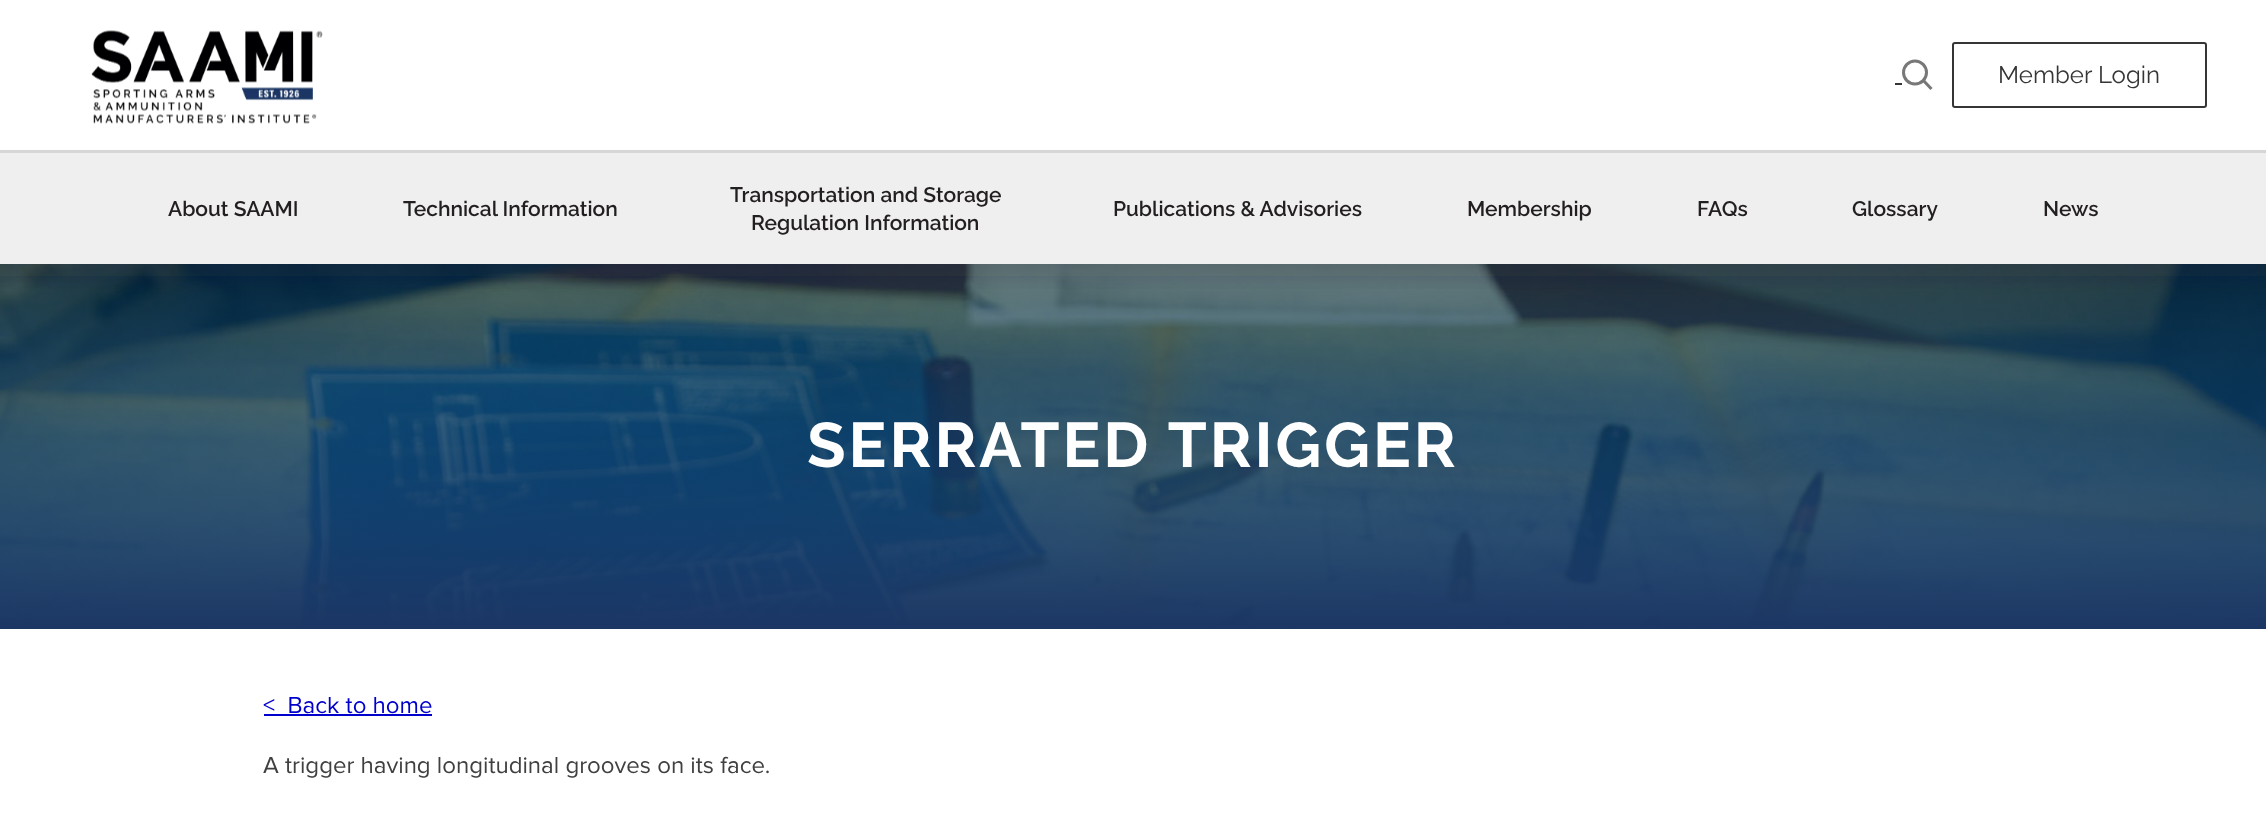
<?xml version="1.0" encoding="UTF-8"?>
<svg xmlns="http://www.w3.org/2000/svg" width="2266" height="836">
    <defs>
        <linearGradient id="g1" gradientUnits="userSpaceOnUse" x1="1133" y1="264" x2="1133" y2="629"><stop offset="0" stop-color="#0069B1" stop-opacity="0.3"/><stop offset="1" stop-color="#1C3664"/></linearGradient>
        <clipPath id="clip1"><rect x="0" y="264" width="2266" height="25"/></clipPath>
        <filter id="blur1" x="-50%" y="-200%" width="200%" height="500%"><feGaussianBlur stdDeviation="10"/></filter>
    </defs>
    <rect width="100%" height="100%" fill="#FFFFFF"/>
    <image x="0" y="264" width="2266" height="362" href="img_02.png"/>
    <rect x="0" y="264" width="2266" height="365" fill="url(#g1)"/>
    <g clip-path="url(#clip1)">
        <rect x="0" y="12" width="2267" height="264" fill="#222155" fill-opacity="0.19" filter="url(#blur1)"/>
    </g>
    <image x="91" y="30" width="232" height="94" href="img_01.png"/>
    <rect x="1895" y="83" width="7" height="2" fill="#353535"/>
    <path d="M 1930.5 88 L 1923.5 80.5" fill="none" stroke="#787878" stroke-width="3" stroke-linecap="square"/>
    <circle cx="1915" cy="72.5" r="11.5" fill="none" stroke="#787878" stroke-width="3"/>
    <rect x="1953" y="43" width="253" height="64" rx="2" fill="none" stroke="#353535" stroke-width="2"/>
    <text x="1998" y="83" font-family="Raleway" font-size="24" fill="#353535">Member Login</text>
    <rect x="0" y="150" width="2266" height="3" fill="#D6D6D6"/>
    <rect x="0" y="153" width="2266" height="111" fill="#EFEFEF"/>
    <text x="168" y="216" font-family="Raleway" font-size="21" font-weight="600" fill="#231F20">About SAAMI</text>
    <text x="403" y="216" font-family="Raleway" font-size="21" font-weight="600" fill="#231F20">Technical Information</text>
    <text x="730" y="202" font-family="Raleway" font-size="21" font-weight="600" fill="#231F20">Transportation and Storage</text>
    <text x="751" y="230" font-family="Raleway" font-size="21" font-weight="600" fill="#231F20">Regulation Information</text>
    <text x="1113" y="216" font-family="Raleway" font-size="21" font-weight="600" fill="#231F20">Publications &amp; Advisories</text>
    <text x="1467" y="216" font-family="Raleway" font-size="21" font-weight="600" fill="#231F20">Membership</text>
    <text x="1697" y="216" font-family="Raleway" font-size="21" font-weight="600" fill="#231F20">FAQs</text>
    <text x="1852" y="216" font-family="Raleway" font-size="21" font-weight="600" fill="#231F20">Glossary</text>
    <text x="2043" y="216" font-family="Raleway" font-size="21" font-weight="600" fill="#231F20">News</text>
    <text x="807" y="467" font-family="Raleway" font-size="63" font-weight="700" letter-spacing="3" fill="#FFFFFF">SERRATED TRIGGER</text>
    <text x="263" y="713" font-family="Proxima Nova" font-size="24" fill="#0000CC" xml:space="preserve">&lt;  Back to home</text>
    <rect x="264" y="714" width="168" height="2" fill="#0000CC"/>
    <text x="263" y="773" font-family="Proxima Nova" font-size="24" fill="#404040">A trigger having longitudinal grooves on its face.</text>
</svg>
